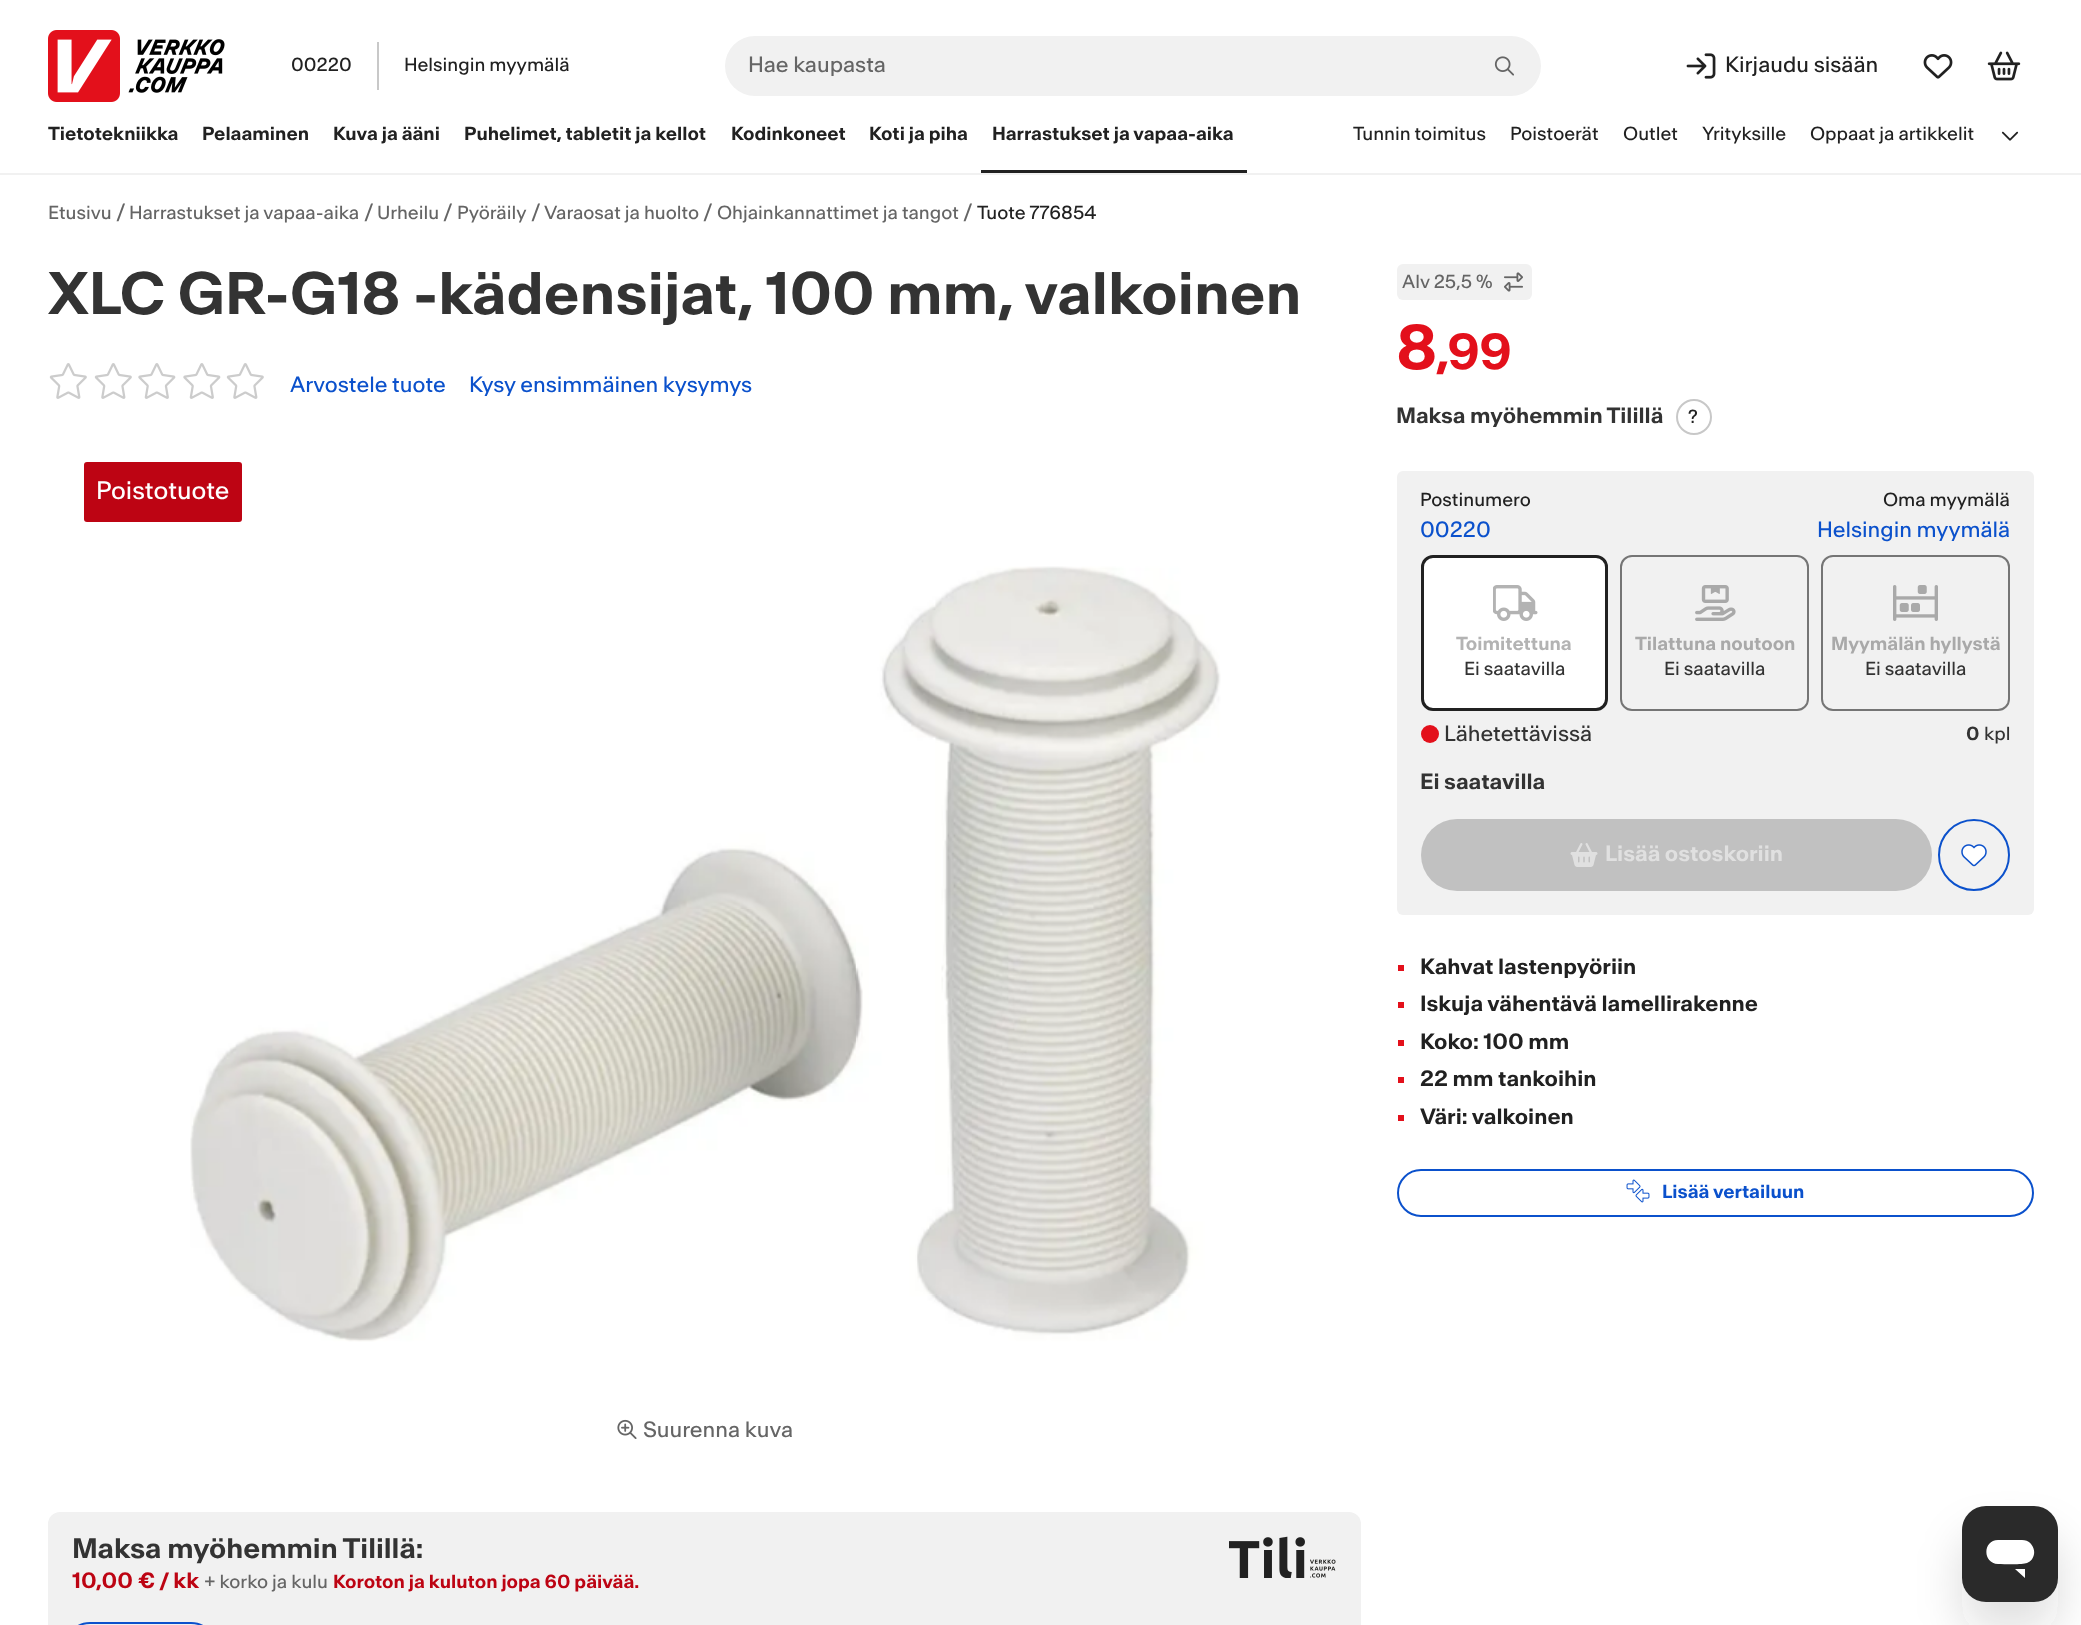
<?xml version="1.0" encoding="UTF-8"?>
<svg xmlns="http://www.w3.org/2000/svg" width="2081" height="1625">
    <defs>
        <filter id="blur1" x="-50%" y="-200%" width="200%" height="500%"><feGaussianBlur stdDeviation="22.5"/></filter>
    </defs>
    <rect width="100%" height="100%" fill="#FFFFFF"/>
    <image x="48" y="30" width="177" height="72" href="img_01.png"/>
    <text x="291" y="71" font-family="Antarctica" font-size="18" fill="#212121">00220</text>
    <rect x="377" y="42" width="2" height="48" fill="#C8C8C8"/>
    <text x="404" y="71" font-family="Antarctica" font-size="18" fill="#212121">Helsingin myymälä</text>
    <rect x="725" y="36" width="816" height="60" rx="30" fill="#F1F1F1"/>
    <text x="748" y="72" font-family="Antarctica" font-size="21" fill="#656565">Hae kaupasta</text>
    <image x="1494" y="56" width="20" height="20" href="img_02.png"/>
    <image x="1686" y="53" width="30" height="26" href="img_03.png"/>
    <text x="1725" y="72" font-family="Antarctica" font-size="21" fill="#212121">Kirjaudu sisään</text>
    <image x="1923" y="54" width="30" height="25" href="img_04.png"/>
    <image x="1987" y="51" width="34" height="30" href="img_05.png"/>
    <rect x="0" y="173" width="2081" height="2" fill="#F1F1F1"/>
    <text x="48" y="140" font-family="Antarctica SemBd" font-size="18" font-weight="600" fill="#212121">Tietotekniikka</text>
    <text x="202" y="140" font-family="Antarctica SemBd" font-size="18" font-weight="600" fill="#212121">Pelaaminen</text>
    <text x="333" y="140" font-family="Antarctica SemBd" font-size="18" font-weight="600" fill="#212121">Kuva ja ääni</text>
    <text x="464" y="140" font-family="Antarctica SemBd" font-size="18" font-weight="600" fill="#212121">Puhelimet, tabletit ja kellot</text>
    <text x="731" y="140" font-family="Antarctica SemBd" font-size="18" font-weight="600" fill="#212121">Kodinkoneet</text>
    <text x="869" y="140" font-family="Antarctica SemBd" font-size="18" font-weight="600" fill="#212121">Koti ja piha</text>
    <text x="992" y="140" font-family="Antarctica SemBd" font-size="18" font-weight="600" fill="#212121">Harrastukset ja vapaa-aika</text>
    <rect x="981" y="170" width="266" height="3" fill="#212121"/>
    <text x="1353" y="140" font-family="Antarctica" font-size="18" fill="#212121">Tunnin toimitus</text>
    <text x="1510" y="140" font-family="Antarctica" font-size="18" fill="#212121">Poistoerät</text>
    <text x="1623" y="140" font-family="Antarctica" font-size="18" fill="#212121">Outlet</text>
    <text x="1702" y="140" font-family="Antarctica" font-size="18" fill="#212121">Yrityksille</text>
    <text x="1810" y="140" font-family="Antarctica" font-size="18" fill="#212121">Oppaat ja artikkelit</text>
    <image x="2001" y="131" width="18" height="10" href="img_06.png"/>
    <text x="48" y="219" font-family="Antarctica" font-size="18" fill="#656565">Etusivu</text>
    <text x="116" y="219" font-family="Antarctica" font-size="21" fill="#656565">/</text>
    <text x="129" y="219" font-family="Antarctica" font-size="18" fill="#656565">Harrastukset ja vapaa-aika</text>
    <text x="364" y="219" font-family="Antarctica" font-size="21" fill="#656565">/</text>
    <text x="377" y="219" font-family="Antarctica" font-size="18" fill="#656565">Urheilu</text>
    <text x="443" y="219" font-family="Antarctica" font-size="21" fill="#656565">/</text>
    <text x="457" y="219" font-family="Antarctica" font-size="18" fill="#656565">Pyöräily</text>
    <text x="531" y="219" font-family="Antarctica" font-size="21" fill="#656565">/</text>
    <text x="544" y="219" font-family="Antarctica" font-size="18" fill="#656565">Varaosat ja huolto</text>
    <text x="703" y="219" font-family="Antarctica" font-size="21" fill="#656565">/</text>
    <text x="717" y="219" font-family="Antarctica" font-size="18" fill="#656565">Ohjainkannattimet ja tangot</text>
    <text x="963" y="219" font-family="Antarctica" font-size="21" fill="#656565">/</text>
    <text x="977" y="219" font-family="Antarctica" font-size="18" fill="#212121">Tuote 776854</text>
    <text x="48" y="314" font-family="Antarctica SemBd" font-size="57" font-weight="600" fill="#333333">XLC GR-G18 -kädensijat, 100 mm, valkoinen</text>
    <image x="49" y="363" width="38" height="36" href="img_07.png"/>
    <image x="94" y="363" width="38" height="36" href="img_07.png"/>
    <image x="138" y="363" width="38" height="36" href="img_08.png"/>
    <image x="183" y="363" width="38" height="36" href="img_08.png"/>
    <image x="226" y="363" width="38" height="36" href="img_07.png"/>
    <text x="290" y="392" font-family="Antarctica" font-size="21" fill="#0B51CC">Arvostele tuote</text>
    <text x="469" y="392" font-family="Antarctica" font-size="21" fill="#0B51CC">Kysy ensimmäinen kysymys</text>
    <rect x="84" y="462" width="158" height="60" rx="3" fill="#BD0413"/>
    <text x="96" y="499" font-family="Antarctica" font-size="24" fill="#FFFFFF">Poistotuote</text>
    <image x="190" y="566" width="1031" height="776" href="img_09.png"/>
    <image x="617" y="1419" width="20" height="20" href="img_10.png"/>
    <text x="643" y="1437" font-family="Antarctica" font-size="21" fill="#656565">Suurenna kuva</text>
    <rect x="1397" y="264" width="135" height="36" rx="6" fill="#F1F1F1"/>
    <text x="1402" y="288" font-family="Antarctica" font-size="18" fill="#656565">Alv 25,5 %</text>
    <image x="1504" y="272" width="19" height="20" href="img_11.png"/>
    <text x="1396" y="369" font-family="Antarctica SemBd" font-size="60" font-weight="600" letter-spacing="-2" fill="#E3101B">8</text>
    <text x="1436" y="369" font-family="Antarctica SemBd" font-size="48" font-weight="600" letter-spacing="-1" fill="#E3101B">,</text>
    <text x="1447" y="369" font-family="Antarctica SemBd" font-size="48" font-weight="600" letter-spacing="-1" fill="#E3101B">99</text>
    <text x="1396" y="423" font-family="Antarctica SemBd" font-size="21" font-weight="600" fill="#333333">Maksa myöhemmin Tilillä</text>
    <circle cx="1694" cy="417" r="17" fill="none" stroke="#C8C8C8" stroke-width="2"/>
    <text x="1688" y="423" font-family="Antarctica" font-size="18" fill="#212121">?</text>
    <rect x="1397" y="471" width="637" height="444" rx="6" fill="#F1F1F1"/>
    <text x="1420" y="506" font-family="Antarctica" font-size="18" fill="#212121">Postinumero</text>
    <text x="1420" y="537" font-family="Antarctica" font-size="21" fill="#0B51CC">00220</text>
    <text x="1883" y="506" font-family="Antarctica" font-size="18" fill="#212121">Oma myymälä</text>
    <text x="1817" y="537" font-family="Antarctica" font-size="21" fill="#0B51CC">Helsingin myymälä</text>
    <rect x="1422.5" y="556.5" width="184" height="153" rx="10.5" fill="#FFFFFF" stroke="#212121" stroke-width="3"/>
    <image x="1493" y="585" width="45" height="36" href="img_12.png"/>
    <text x="1456" y="650" font-family="Antarctica SemBd" font-size="18" font-weight="600" fill="#B3B3B3">Toimitettuna</text>
    <text x="1464" y="675" font-family="Antarctica" font-size="18" fill="#333333">Ei saatavilla</text>
    <rect x="1621" y="556" width="187" height="154" rx="11" fill="none" stroke="#757575" stroke-width="2"/>
    <image x="1695" y="585" width="41" height="36" href="img_13.png"/>
    <text x="1635" y="650" font-family="Antarctica SemBd" font-size="18" font-weight="600" fill="#A9A9A9">Tilattuna noutoon</text>
    <text x="1664" y="675" font-family="Antarctica" font-size="18" fill="#333333">Ei saatavilla</text>
    <rect x="1822" y="556" width="187" height="154" rx="11" fill="none" stroke="#757575" stroke-width="2"/>
    <image x="1893" y="585" width="45" height="36" href="img_14.png"/>
    <text x="1831" y="650" font-family="Antarctica SemBd" font-size="18" font-weight="600" fill="#A9A9A9">Myymälän hyllystä</text>
    <text x="1865" y="675" font-family="Antarctica" font-size="18" fill="#333333">Ei saatavilla</text>
    <circle cx="1430" cy="734" r="9" fill="#E3101B"/>
    <text x="1444" y="741" font-family="Antarctica" font-size="21" fill="#333333">Lähetettävissä</text>
    <text x="1966" y="740" font-family="Antarctica SemBd" font-size="18" font-weight="600" fill="#333333">0</text>
    <text x="1984" y="740" font-family="Antarctica" font-size="18" fill="#333333">kpl</text>
    <text x="1420" y="789" font-family="Antarctica SemBd" font-size="21" font-weight="600" fill="#333333">Ei saatavilla</text>
    <rect x="1421" y="819" width="511" height="72" rx="36" fill="#C1C1C1"/>
    <image x="1570" y="843" width="28" height="24" href="img_15.png"/>
    <text x="1605" y="861" font-family="Antarctica SemBd" font-size="21" font-weight="600" fill="#E0E0E0">Lisää ostoskoriin</text>
    <circle cx="1974" cy="855" r="35" fill="none" stroke="#0B51CC" stroke-width="2"/>
    <image x="1961" y="844" width="26" height="23" href="img_16.png"/>
    <rect x="1398" y="965" width="6" height="6" fill="#E3101B"/>
    <text x="1420" y="974" font-family="Antarctica SemBd" font-size="21" font-weight="600" fill="#212121">Kahvat lastenpyöriin</text>
    <rect x="1398" y="1002" width="6" height="6" fill="#E3101B"/>
    <text x="1420" y="1011" font-family="Antarctica SemBd" font-size="21" font-weight="600" fill="#212121">Iskuja vähentävä lamellirakenne</text>
    <rect x="1398" y="1040" width="6" height="6" fill="#E3101B"/>
    <text x="1420" y="1049" font-family="Antarctica SemBd" font-size="21" font-weight="600" fill="#212121">Koko: 100 mm</text>
    <rect x="1398" y="1077" width="6" height="6" fill="#E3101B"/>
    <text x="1420" y="1086" font-family="Antarctica SemBd" font-size="21" font-weight="600" fill="#212121">22 mm tankoihin</text>
    <rect x="1398" y="1115" width="6" height="6" fill="#E3101B"/>
    <text x="1420" y="1124" font-family="Antarctica SemBd" font-size="21" font-weight="600" fill="#212121">Väri: valkoinen</text>
    <rect x="1398" y="1170" width="635" height="46" rx="23" fill="none" stroke="#0B51CC" stroke-width="2"/>
    <image x="1626" y="1179" width="24" height="24" href="img_17.png"/>
    <text x="1662" y="1198" font-family="Antarctica SemBd" font-size="18" font-weight="600" fill="#0B51CC">Lisää vertailuun</text>
    <rect x="48" y="1512" width="1313" height="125" rx="12" fill="#F1F1F1"/>
    <text x="72" y="1558" font-family="Antarctica SemBd" font-size="27" font-weight="600" fill="#333333">Maksa myöhemmin Tilillä:</text>
    <text x="72" y="1588" font-family="Antarctica SemBd" font-size="21" font-weight="600" fill="#BD0413">10,00 €</text>
    <text x="159" y="1588" font-family="Antarctica SemBd" font-size="21" font-weight="600" fill="#BD0413">/ kk</text>
    <text x="204" y="1588" font-family="Antarctica" font-size="18" fill="#656565">+ korko ja kulu</text>
    <text x="333" y="1588" font-family="Antarctica SemBd" font-size="18" font-weight="600" fill="#BD0413">Koroton ja kuluton jopa 60 päivää.</text>
    <image x="1229" y="1536" width="107" height="42" href="img_18.png"/>
    <rect x="73" y="1623" width="135" height="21" rx="17" fill="none" stroke="#0B51CC" stroke-width="2"/>
    <rect x="1962" y="1536" width="96" height="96" rx="24" fill="#242424" fill-opacity="0.15" filter="url(#blur1)"/>
    <rect x="1962" y="1506" width="96" height="96" rx="24" fill="#2A2A2A"/>
    <path d="M 2015 1569 L 2025 1578 V 1569 Z M 1998 1540 C 1983 1540 1982 1563 1998 1564 C 2004 1564 2022 1565 2027 1563 C 2039 1558 2035 1540 2022 1540 Z" fill="#FFFFFF"/>
</svg>
